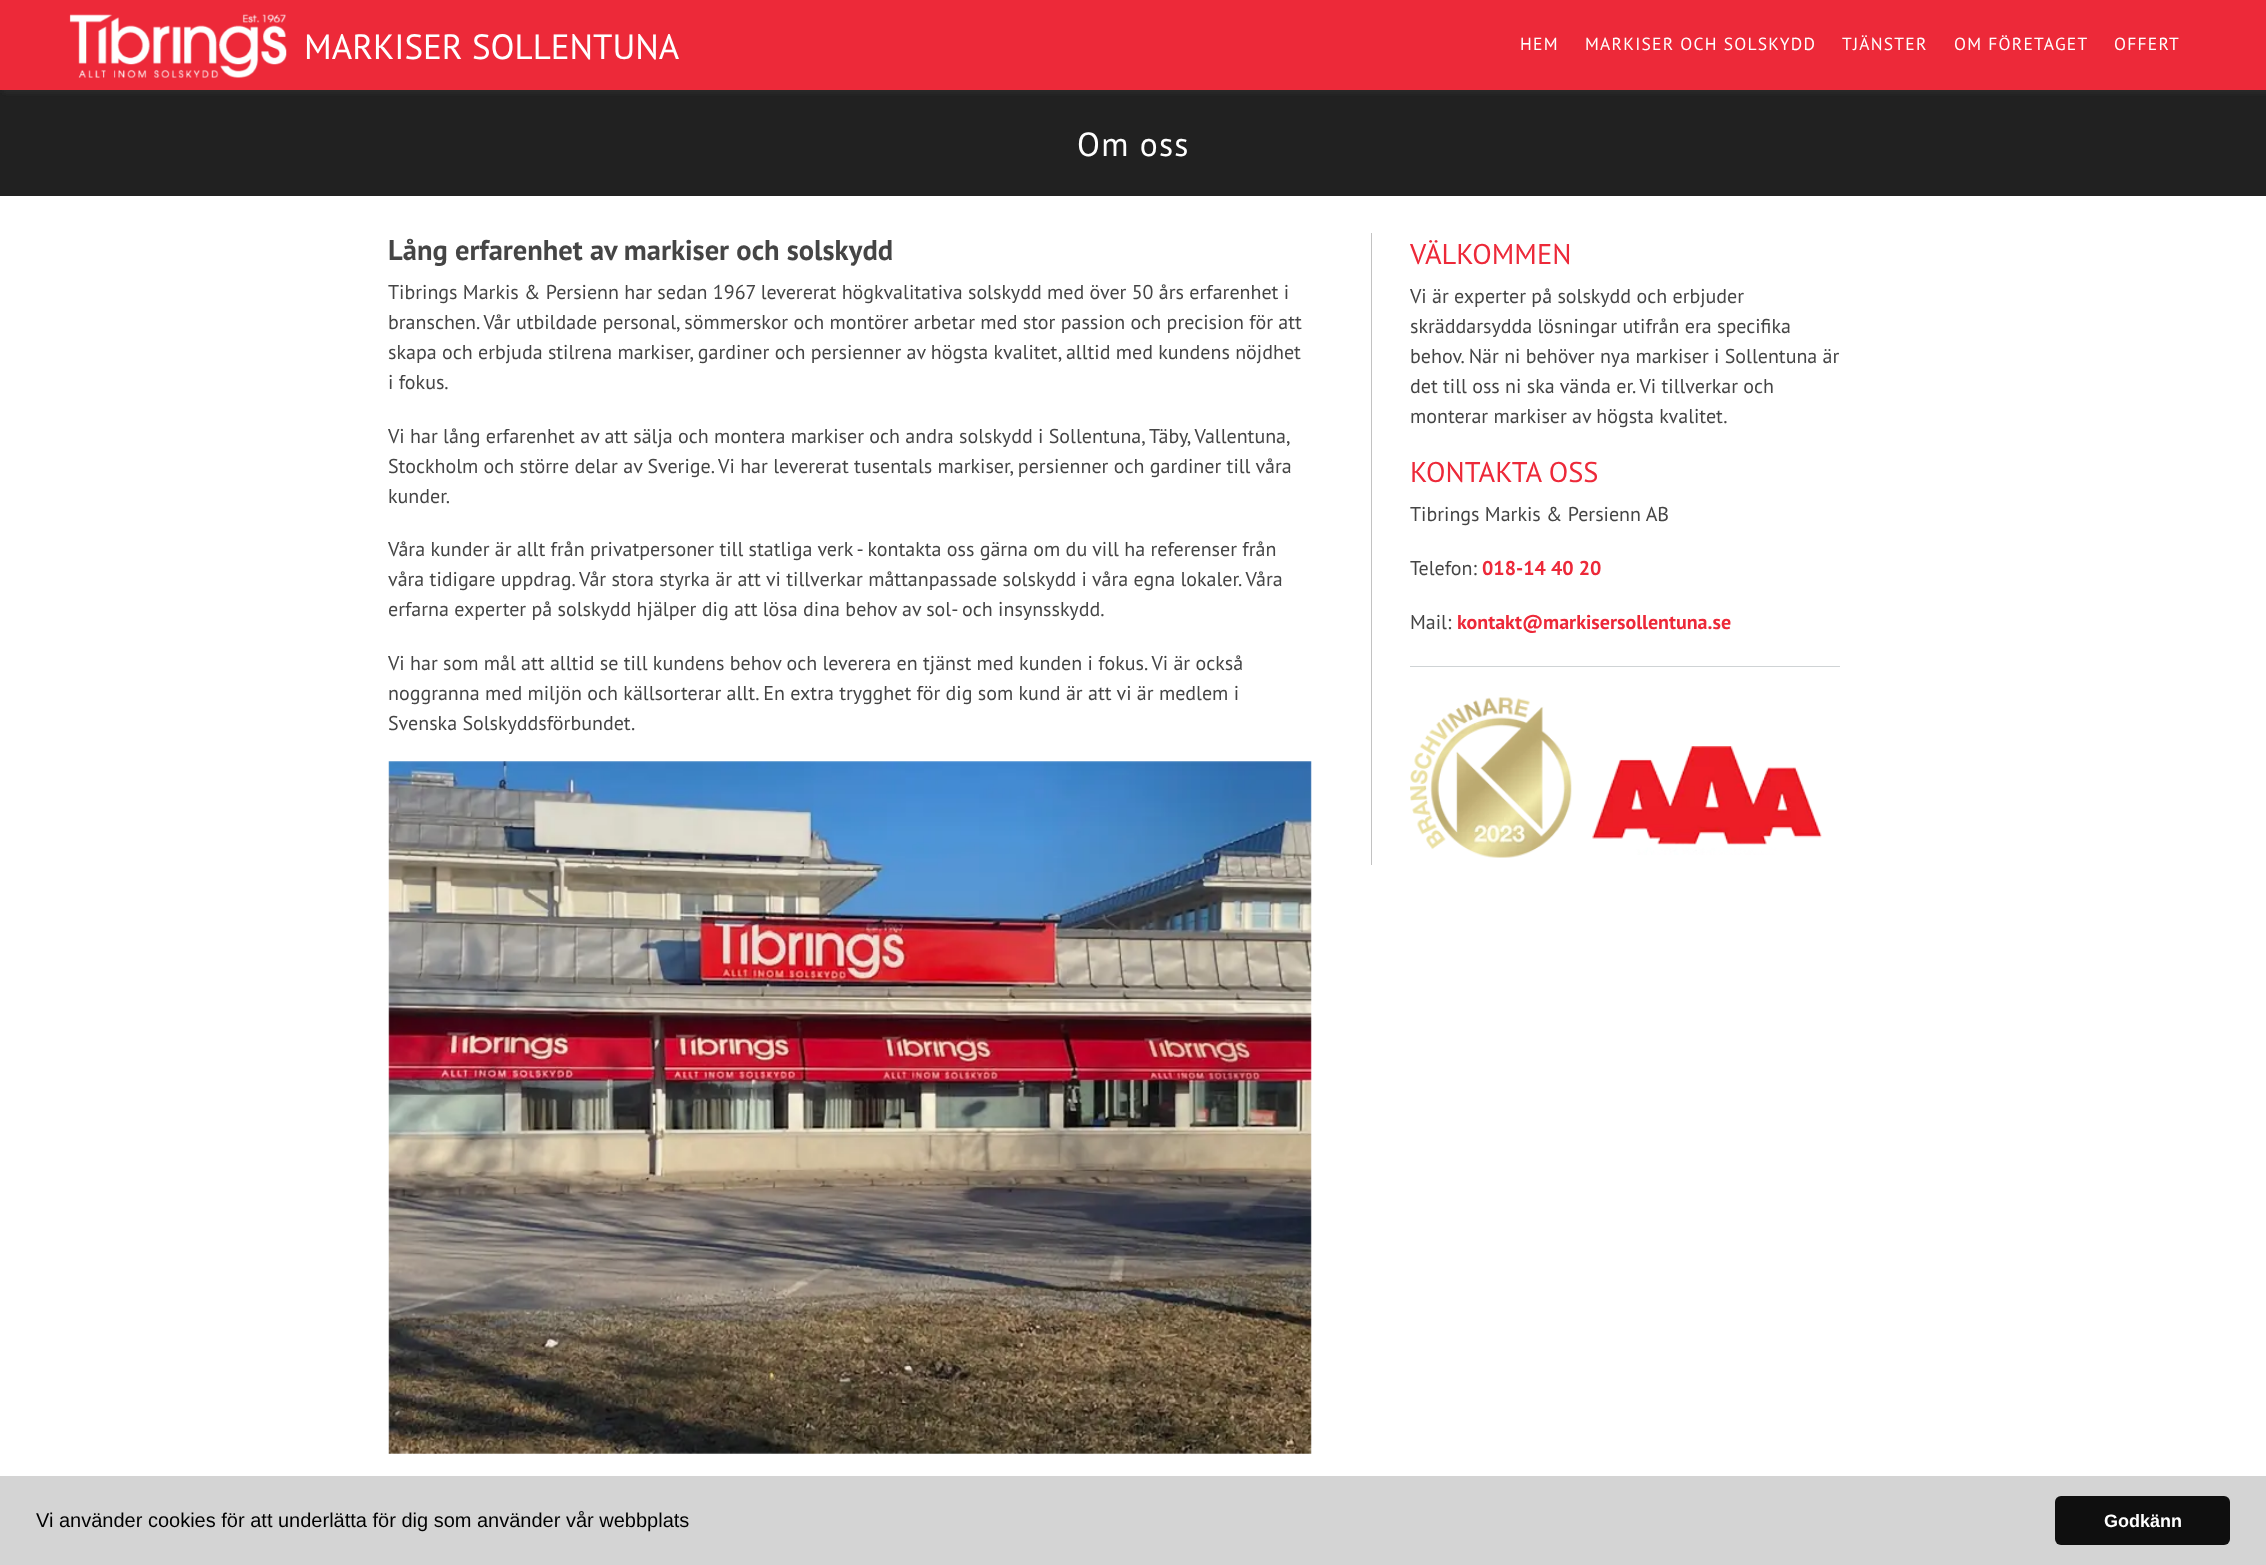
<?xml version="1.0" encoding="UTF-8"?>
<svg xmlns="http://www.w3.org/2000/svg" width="2266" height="1565">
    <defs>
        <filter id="blur1" x="-50%" y="-200%" width="200%" height="500%"><feGaussianBlur stdDeviation="2.5"/></filter>
    </defs>
    <rect width="100%" height="100%" fill="#FFFFFF"/>
    <rect x="0" y="90" width="2266" height="106" fill="#212121"/>
    <rect x="3" y="3" width="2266" height="90" fill="#444444" fill-opacity="0.27" filter="url(#blur1)"/>
    <rect x="0" y="0" width="2266" height="90" fill="#ED2939"/>
    <image x="69" y="14" width="218" height="64" href="img_01.png"/>
    <text x="304" y="59" font-family="PT Sans" font-size="35" fill="#FFFFFF">MARKISER SOLLENTUNA</text>
    <text x="1520" y="50" font-family="PT Sans" font-size="17.5" letter-spacing="1.25" fill="#FFFFFF">HEM</text>
    <text x="1585" y="50" font-family="PT Sans" font-size="17.5" letter-spacing="1.25" fill="#FFFFFF">MARKISER OCH SOLSKYDD</text>
    <text x="1842" y="50" font-family="PT Sans" font-size="17.5" letter-spacing="1.25" fill="#FFFFFF">TJÄNSTER</text>
    <text x="1954" y="50" font-family="PT Sans" font-size="17.5" letter-spacing="1.25" fill="#FFFFFF">OM FÖRETAGET</text>
    <text x="2114" y="50" font-family="PT Sans" font-size="17.5" letter-spacing="1.25" fill="#FFFFFF">OFFERT</text>
    <text x="1077" y="156" font-family="PT Sans" font-size="33.5" letter-spacing="1.25" fill="#FFFFFF">Om oss</text>
    <text x="388" y="260" font-family="PT Sans" font-size="28.5" font-weight="700" fill="#454545">Lång erfarenhet av markiser och solskydd</text>
    <text font-family="PT Sans" font-size="20" fill="#454545">
        <tspan x="388" y="299">Tibrings Markis &amp; Persienn har sedan 1967 levererat högkvalitativa solskydd med över 50 års erfarenhet i</tspan>
        <tspan x="388" y="329">branschen. Vår utbildade personal, sömmerskor och montörer arbetar med stor passion och precision för att</tspan>
        <tspan x="388" y="359">skapa och erbjuda stilrena markiser, gardiner och persienner av högsta kvalitet, alltid med kundens nöjdhet</tspan>
        <tspan x="388" y="389">i fokus.</tspan>
    </text>
    <text font-family="PT Sans" font-size="20" fill="#454545">
        <tspan x="388" y="443">Vi har lång erfarenhet av att sälja och montera markiser och andra solskydd i Sollentuna, Täby, Vallentuna,</tspan>
        <tspan x="388" y="473">Stockholm och större delar av Sverige. Vi har levererat tusentals markiser, persienner och gardiner till våra</tspan>
        <tspan x="388" y="503">kunder.</tspan>
    </text>
    <text font-family="PT Sans" font-size="20" fill="#454545">
        <tspan x="388" y="556">Våra kunder är allt från privatpersoner till statliga verk - kontakta oss gärna om du vill ha referenser från</tspan>
        <tspan x="388" y="586">våra tidigare uppdrag. Vår stora styrka är att vi tillverkar måttanpassade solskydd i våra egna lokaler. Våra</tspan>
        <tspan x="388" y="616">erfarna experter på solskydd hjälper dig att lösa dina behov av sol- och insynsskydd.</tspan>
    </text>
    <text font-family="PT Sans" font-size="20" fill="#454545">
        <tspan x="388" y="670">Vi har som mål att alltid se till kundens behov och leverera en tjänst med kunden i fokus. Vi är också</tspan>
        <tspan x="388" y="700">noggranna med miljön och källsorterar allt. En extra trygghet för dig som kund är att vi är medlem i</tspan>
        <tspan x="388" y="730">Svenska Solskyddsförbundet.</tspan>
    </text>
    <image x="388" y="761" width="924" height="693" href="img_02.png"/>
    <rect x="1371" y="233" width="1" height="632" fill="#C2C2C2"/>
    <text x="1410" y="264" font-family="PT Sans" font-size="28.5" fill="#ED2939">VÄLKOMMEN</text>
    <text font-family="PT Sans" font-size="20" fill="#454545">
        <tspan x="1410" y="303">Vi är experter på solskydd och erbjuder</tspan>
        <tspan x="1410" y="333">skräddarsydda lösningar utifrån era specifika</tspan>
        <tspan x="1410" y="363">behov. När ni behöver nya markiser i Sollentuna är</tspan>
        <tspan x="1410" y="393">det till oss ni ska vända er. Vi tillverkar och</tspan>
        <tspan x="1410" y="423">monterar markiser av högsta kvalitet.</tspan>
    </text>
    <text x="1410" y="482" font-family="PT Sans" font-size="28.5" fill="#ED2939">KONTAKTA OSS</text>
    <text x="1410" y="521" font-family="PT Sans" font-size="20" fill="#454545">Tibrings Markis &amp; Persienn AB</text>
    <text x="1410" y="575" font-family="PT Sans" font-size="20" fill="#454545">Telefon:</text>
    <text x="1482" y="575" font-family="PT Sans" font-size="20" font-weight="700" fill="#ED2939">018-14 40 20</text>
    <text x="1410" y="629" font-family="PT Sans" font-size="20" fill="#454545">Mail:</text>
    <text x="1457" y="629" font-family="PT Sans" font-size="20" font-weight="700" fill="#ED2939">kontakt@markisersollentuna.se</text>
    <rect x="1410" y="666" width="430" height="1" fill="#CFD3D5"/>
    <image x="1410" y="697" width="162" height="161" href="img_03.png"/>
    <image x="1592" y="746" width="230" height="109" href="img_04.png"/>
    <rect x="0" y="1476" width="2266" height="89" fill="#D4D4D4"/>
    <text x="36" y="1527" font-family="Liberation Sans" font-size="20" fill="#000000">Vi använder cookies för att underlätta för dig som använder vår webbplats</text>
    <rect x="2055" y="1496" width="175" height="49" rx="6" fill="#0F0F0F"/>
    <text x="2104" y="1527" font-family="Liberation Sans" font-size="18" font-weight="700" fill="#FFFFFF">Godkänn</text>
</svg>
